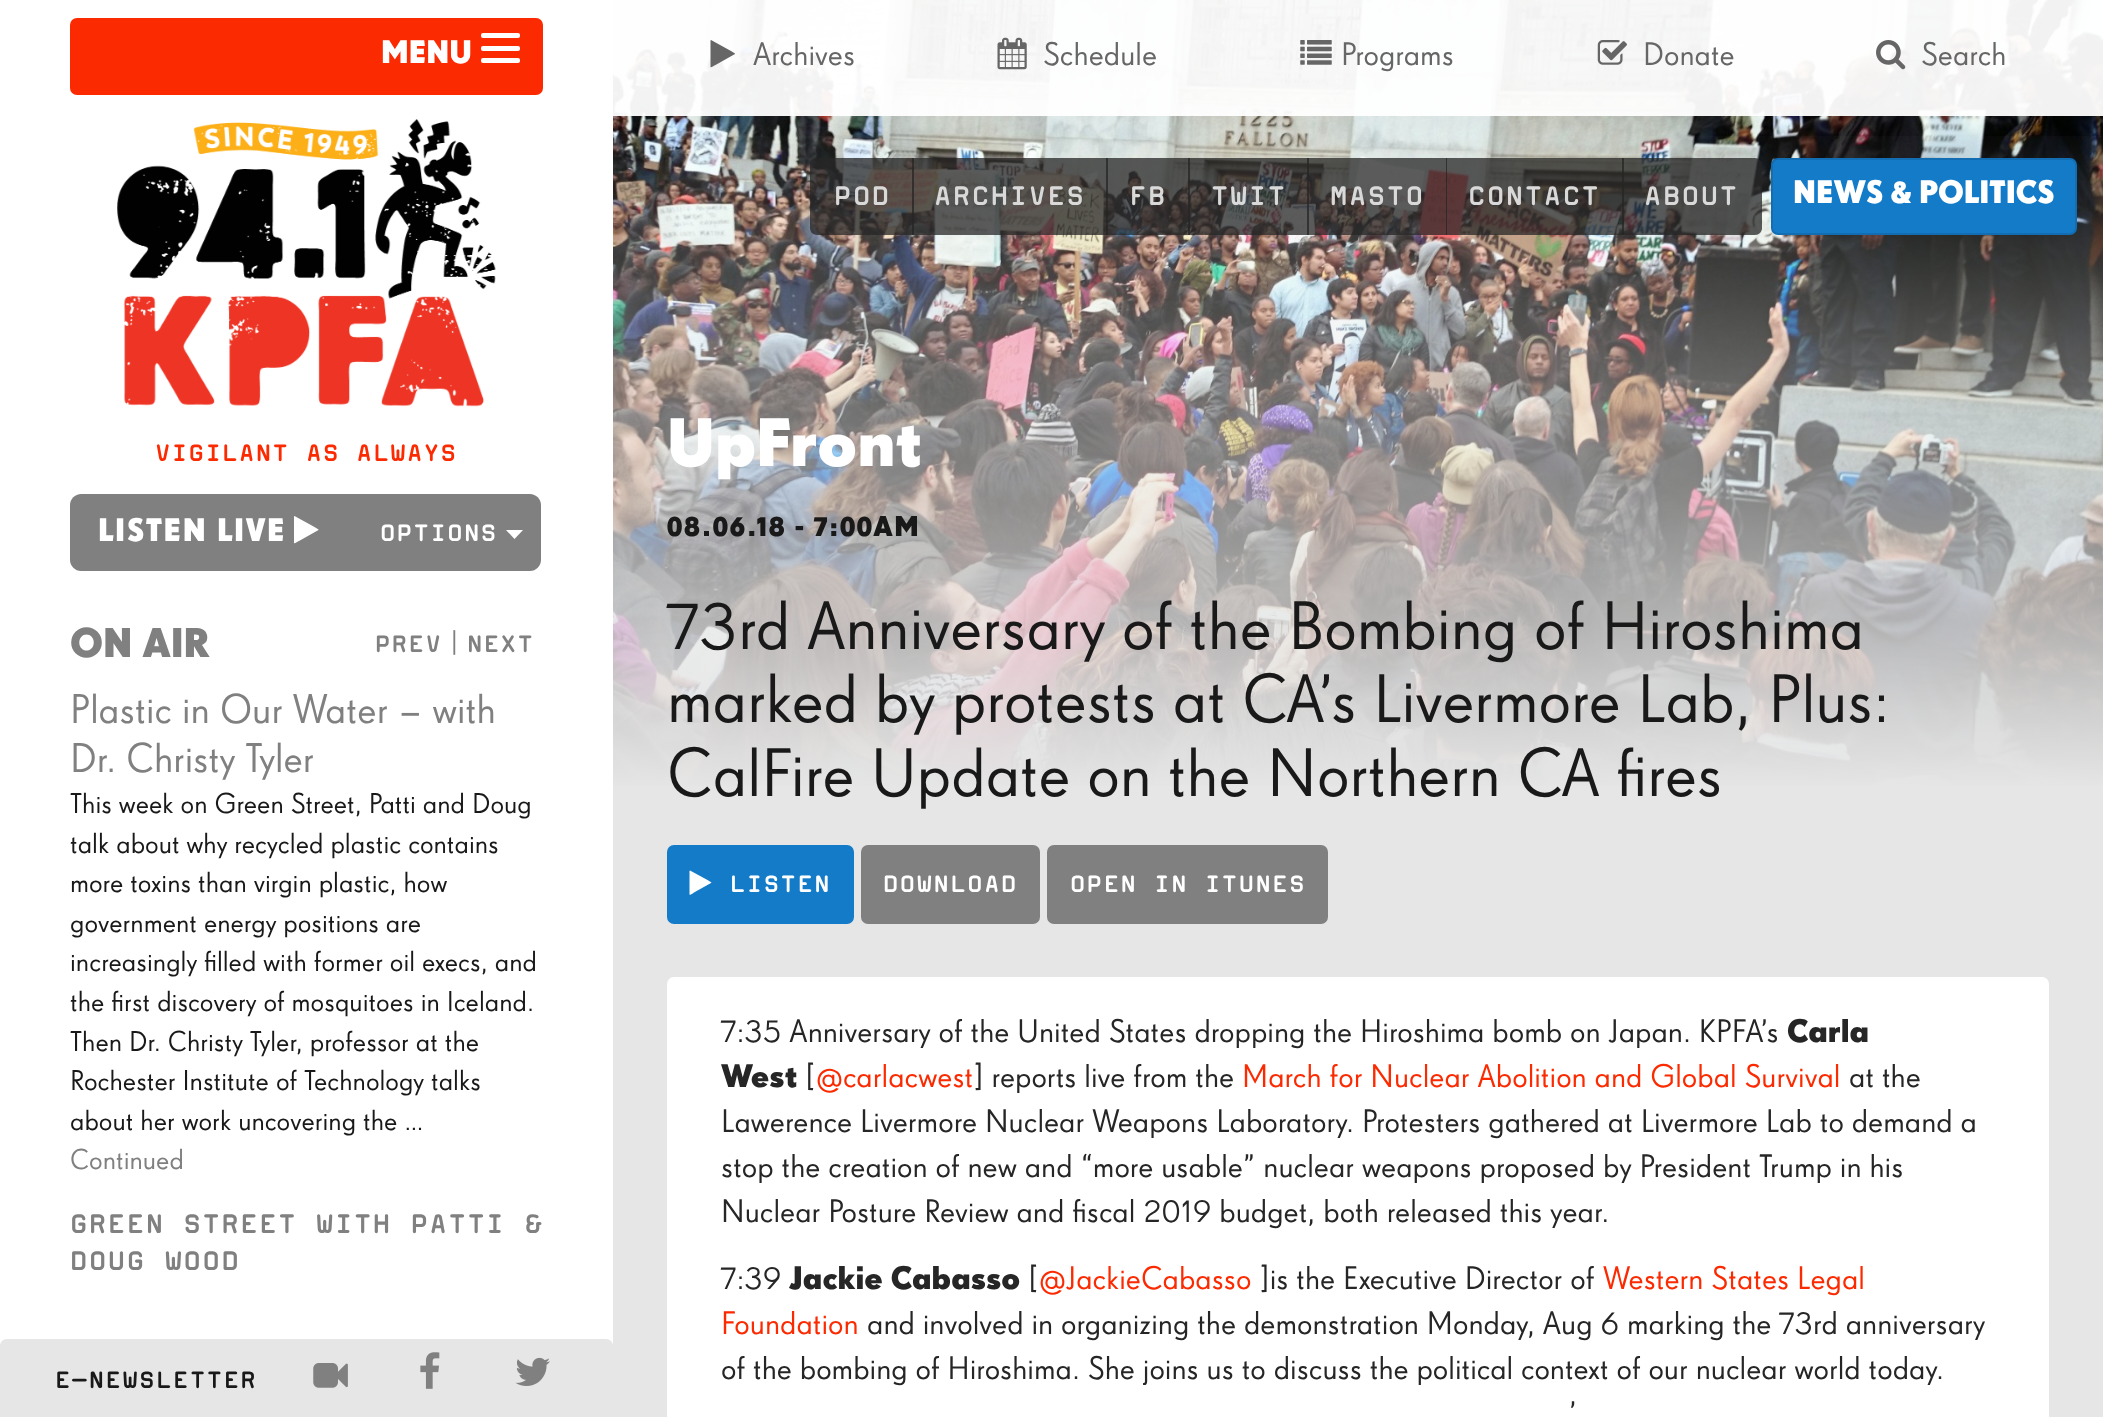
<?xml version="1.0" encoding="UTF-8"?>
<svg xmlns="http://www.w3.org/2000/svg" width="2103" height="1417">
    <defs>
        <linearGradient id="g1" gradientUnits="userSpaceOnUse" x1="1358" y1="122" x2="1358" y2="791"><stop offset="0" stop-color="#E6E6E6" stop-opacity="0"/><stop offset="0.88" stop-color="#E6E6E6" stop-opacity="0.9"/><stop offset="1" stop-color="#E6E6E6"/></linearGradient>
    </defs>
    <rect width="100%" height="100%" fill="#E6E6E6"/>
    <rect x="0" y="0" width="613" height="1346" fill="#FFFFFF"/>
    <rect x="70" y="18" width="473" height="77" rx="7" fill="#FC2A00"/>
    <text x="381" y="63" font-family="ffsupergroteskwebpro" font-size="31.5" font-weight="700" fill="#FFFFFF">MENU</text>
    <rect x="481" y="33" width="39" height="5" rx="2" fill="#FFFFFF"/>
    <rect x="481" y="46" width="39" height="5" rx="2" fill="#FFFFFF"/>
    <rect x="481" y="58" width="39" height="5" rx="2" fill="#FFFFFF"/>
    <image x="117" y="119" width="379" height="288" href="img_01.png"/>
    <text x="155" y="461" font-family="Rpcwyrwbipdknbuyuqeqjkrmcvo" font-size="28" font-weight="700" letter-spacing="1.4" fill="#FC2A00">VIGILANT AS ALWAYS</text>
    <path d="M 81 494 H 354 V 571 H 81 C 75 571 70 566 70 560 V 505 C 70 499 75 494 81 494 Z" fill="#808080"/>
    <text x="98" y="541" font-family="ffsupergroteskwebpro" font-size="31.5" font-weight="700" letter-spacing="1.6" fill="#FFFFFF">LISTEN LIVE</text>
    <path d="M 318.5 530 L 299 541 C 298.5 541 295 544 294 543 V 516.5 L 294.5 516 L 314.5 527 L 318.5 529.5 Z" fill="#FFFFFF"/>
    <path d="M 352 494 H 530 C 536 494 541 499 541 505 V 560 C 541 566 536 571 530 571 H 352 Z" fill="#808080"/>
    <text x="380" y="541" font-family="Rpcwyrwbipdknbuyuqeqjkrmcvo" font-size="28" font-weight="700" letter-spacing="1.4" fill="#FFFFFF">OPTIONS</text>
    <path d="M 506 530 H 523 L 514.5 539 Z" fill="#FFFFFF"/>
    <text x="70" y="657" font-family="ffsupergroteskwebpro" font-size="40.25" font-weight="700" fill="#808080">ON AIR</text>
    <text x="375" y="652" font-family="Rpcwyrwbipdknbuyuqeqjkrmcvo" font-size="28" font-weight="700" letter-spacing="1.4" fill="#808080">PREV</text>
    <text x="449" y="652" font-family="ffsupergroteskwebpro" font-size="28" fill="#808080">|</text>
    <text x="467" y="652" font-family="Rpcwyrwbipdknbuyuqeqjkrmcvo" font-size="28" font-weight="700" letter-spacing="1.4" fill="#808080">NEXT</text>
    <text font-family="ffsupergroteskwebpro" font-size="40.25" fill="#808080">
        <tspan x="70" y="723">Plastic in Our Water – with</tspan>
        <tspan x="70" y="772">Dr. Christy Tyler</tspan>
    </text>
    <text font-family="ffsupergroteskwebpro" font-size="27.75" fill="#191919">
        <tspan x="70" y="813">This week on Green Street, Patti and Doug</tspan>
        <tspan x="70" y="853">talk about why recycled plastic contains</tspan>
        <tspan x="70" y="892">more toxins than virgin plastic, how</tspan>
        <tspan x="70" y="932">government energy positions are</tspan>
        <tspan x="70" y="971">increasingly filled with former oil execs, and</tspan>
        <tspan x="70" y="1011">the first discovery of mosquitoes in Iceland.</tspan>
        <tspan x="70" y="1051">Then Dr. Christy Tyler, professor at the</tspan>
        <tspan x="70" y="1090">Rochester Institute of Technology talks</tspan>
        <tspan x="70" y="1130">about her work uncovering the …</tspan>
    </text>
    <text x="70" y="1169" font-family="ffsupergroteskwebpro" font-size="27.75" fill="#808080">Continued</text>
    <text font-family="Rpcwyrwbipdknbuyuqeqjkrmcvo" font-size="31.5" font-weight="700" letter-spacing="1.6" fill="#808080">
        <tspan x="70" y="1233">GREEN STREET WITH PATTI &amp;</tspan>
        <tspan x="70" y="1270">DOUG WOOD</tspan>
    </text>
    <path d="M 7 1339 H 606 C 610 1339 613 1342 613 1346 V 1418 H 0 V 1346 C 0 1342 3 1339 7 1339 Z" fill="#E6E6E6"/>
    <text x="55" y="1388" font-family="Rpcwyrwbipdknbuyuqeqjkrmcvo" font-size="27.75" font-weight="700" letter-spacing="1.6" fill="#191919">E-NEWSLETTER</text>
    <image x="313" y="1363" width="35" height="25" href="img_02.png"/>
    <image x="420" y="1352" width="20" height="37" href="img_03.png"/>
    <image x="515" y="1357" width="35" height="29" href="img_04.png"/>
    <image x="613" y="0" width="1490" height="786" href="img_05.png"/>
    <rect x="613" y="136" width="1490" height="650" fill="url(#g1)"/>
    <rect x="613" y="0" width="1490" height="116" fill="#FFFFFF" fill-opacity="0.95"/>
    <path d="M 735 54 L 715.5 65 C 715 65 711.5 68 710.5 67 V 40.5 L 711 40 L 731 51 L 735 53.5 Z" fill="#666666"/>
    <text x="753" y="65" font-family="ffsupergroteskwebpro" font-size="31.5" fill="#666666">Archives</text>
    <image x="997" y="37" width="30" height="33" href="img_06.png"/>
    <text x="1043" y="65" font-family="ffsupergroteskwebpro" font-size="31.5" fill="#666666">Schedule</text>
    <image x="1300" y="40" width="32" height="25" href="img_07.png"/>
    <text x="1341" y="65" font-family="ffsupergroteskwebpro" font-size="31.5" fill="#666666">Programs</text>
    <image x="1597" y="40" width="30" height="25" href="img_08.png"/>
    <text x="1643" y="65" font-family="ffsupergroteskwebpro" font-size="31.5" fill="#666666">Donate</text>
    <image x="1876" y="40" width="30" height="30" href="img_09.png"/>
    <text x="1921" y="65" font-family="ffsupergroteskwebpro" font-size="31.5" fill="#666666">Search</text>
    <path d="M 817 158 H 914 V 235 H 817 C 813 235 810 232 810 228 V 165 C 810 161 813 158 817 158 Z" fill="#262626" fill-opacity="0.75"/>
    <text x="834" y="205" font-family="Rpcwyrwbipdknbuyuqeqjkrmcvo" font-size="31.5" font-weight="700" letter-spacing="1.6" fill="#D9D9D9">POD</text>
    <rect x="912" y="158" width="196" height="77" fill="#262626" fill-opacity="0.75"/>
    <text x="934" y="205" font-family="Rpcwyrwbipdknbuyuqeqjkrmcvo" font-size="31.5" font-weight="700" letter-spacing="1.6" fill="#D9D9D9">ARCHIVES</text>
    <rect x="1106" y="158" width="84" height="77" fill="#262626" fill-opacity="0.75"/>
    <text x="1129" y="205" font-family="Rpcwyrwbipdknbuyuqeqjkrmcvo" font-size="31.5" font-weight="700" letter-spacing="1.6" fill="#D9D9D9">FB</text>
    <rect x="1188" y="158" width="121" height="77" fill="#262626" fill-opacity="0.75"/>
    <text x="1211" y="205" font-family="Rpcwyrwbipdknbuyuqeqjkrmcvo" font-size="31.5" font-weight="700" letter-spacing="1.6" fill="#D9D9D9">TWIT</text>
    <rect x="1307" y="158" width="140" height="77" fill="#262626" fill-opacity="0.75"/>
    <text x="1330" y="205" font-family="Rpcwyrwbipdknbuyuqeqjkrmcvo" font-size="31.5" font-weight="700" letter-spacing="1.6" fill="#D9D9D9">MASTO</text>
    <rect x="1446" y="158" width="178" height="77" fill="#262626" fill-opacity="0.75"/>
    <text x="1468" y="205" font-family="Rpcwyrwbipdknbuyuqeqjkrmcvo" font-size="31.5" font-weight="700" letter-spacing="1.6" fill="#D9D9D9">CONTACT</text>
    <path d="M 1622 158 H 1755 C 1759 158 1762 161 1762 165 V 228 C 1762 232 1759 235 1755 235 H 1622 Z" fill="#262626" fill-opacity="0.75"/>
    <text x="1644" y="205" font-family="Rpcwyrwbipdknbuyuqeqjkrmcvo" font-size="31.5" font-weight="700" letter-spacing="1.6" fill="#D9D9D9">ABOUT</text>
    <rect x="1772" y="159" width="304" height="75" rx="6" fill="#147BC9" stroke="#126DB2" stroke-width="2"/>
    <text x="1793" y="203" font-family="ffsupergroteskwebpro" font-size="31.5" font-weight="700" fill="#FFFFFF">NEWS &amp; POLITICS</text>
    <text x="667" y="466" font-family="ffsupergroteskwebpro" font-size="66.5" font-weight="700" fill="#FFFFFF">UpFront</text>
    <text x="667" y="536" font-family="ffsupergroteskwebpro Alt" font-size="27.75" font-weight="700" letter-spacing="1.4" fill="#191919">08.06.18 - 7:00AM</text>
    <text x="667" y="649" font-family="ffsupergroteskwebpro Alt" font-size="66.5" fill="#191919">73rd Anniversary of the Bombing of Hiroshima</text>
    <text font-family="ffsupergroteskwebpro" font-size="66.5" fill="#191919">
        <tspan x="667" y="722">marked by protests at CA’s Livermore Lab, Plus:</tspan>
        <tspan x="667" y="796">CalFire Update on the Northern CA fires</tspan>
    </text>
    <rect x="668" y="846" width="185" height="77" rx="6" fill="#147BC9" stroke="#147BC9" stroke-width="2"/>
    <path d="M 711 883 L 694 892.5 C 693.5 893 690 895.5 689.5 894.5 V 871 L 690 870.5 L 707.5 880 L 711.5 882.5 Z" fill="#FFFFFF"/>
    <text x="730" y="892" font-family="Rpcwyrwbipdknbuyuqeqjkrmcvo" font-size="27.75" font-weight="700" letter-spacing="1.6" fill="#FFFFFF">LISTEN</text>
    <rect x="862" y="846" width="177" height="77" rx="6" fill="#808080" stroke="#808080" stroke-width="2"/>
    <text x="883" y="892" font-family="Rpcwyrwbipdknbuyuqeqjkrmcvo" font-size="27.75" font-weight="700" letter-spacing="1.6" fill="#FFFFFF">DOWNLOAD</text>
    <rect x="1048" y="846" width="279" height="77" rx="6" fill="#808080" stroke="#808080" stroke-width="2"/>
    <text x="1070" y="892" font-family="Rpcwyrwbipdknbuyuqeqjkrmcvo" font-size="27.75" font-weight="700" letter-spacing="1.6" fill="#FFFFFF">OPEN IN ITUNES</text>
    <rect x="667" y="977" width="1382" height="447" rx="7" fill="#FFFFFF"/>
    <text x="721" y="1042" font-family="ffsupergroteskwebpro Alt" font-size="31.5" fill="#262626">7:35 Anniversary of the United States dropping the Hiroshima bomb on Japan. KPFA’s</text>
    <text x="1787" y="1042" font-family="ffsupergroteskwebpro" font-size="31.5" font-weight="700" fill="#262626">Carla</text>
    <text x="721" y="1087" font-family="ffsupergroteskwebpro" font-size="31.5" font-weight="700" fill="#262626">West</text>
    <text x="805" y="1087" font-family="ffsupergroteskwebpro" font-size="31.5" fill="#262626">[</text>
    <text x="816" y="1087" font-family="ffsupergroteskwebpro" font-size="31.5" fill="#FC2A00">@carlacwest</text>
    <text x="973" y="1087" font-family="ffsupergroteskwebpro" font-size="31.5" fill="#262626">] reports live from the</text>
    <text x="1242" y="1087" font-family="ffsupergroteskwebpro" font-size="31.5" fill="#FC2A00">March for Nuclear Abolition and Global Survival</text>
    <text x="1849" y="1087" font-family="ffsupergroteskwebpro" font-size="31.5" fill="#262626">at the</text>
    <text font-family="ffsupergroteskwebpro" font-size="31.5" fill="#262626">
        <tspan x="721" y="1132">Lawerence Livermore Nuclear Weapons Laboratory. Protesters gathered at Livermore Lab to demand a</tspan>
        <tspan x="721" y="1177">stop the creation of new and “more usable” nuclear weapons proposed by President Trump in his</tspan>
    </text>
    <text x="721" y="1222" font-family="ffsupergroteskwebpro Alt" font-size="31.5" fill="#262626">Nuclear Posture Review and fiscal 2019 budget, both released this year.</text>
    <text x="721" y="1289" font-family="ffsupergroteskwebpro Alt" font-size="31.5" fill="#262626">7:39</text>
    <text x="789" y="1289" font-family="ffsupergroteskwebpro" font-size="31.5" font-weight="700" fill="#262626">Jackie Cabasso</text>
    <text x="1028" y="1289" font-family="ffsupergroteskwebpro" font-size="31.5" fill="#262626">[</text>
    <text x="1039" y="1289" font-family="ffsupergroteskwebpro" font-size="31.5" fill="#FC2A00">@JackieCabasso</text>
    <text x="1259" y="1289" font-family="ffsupergroteskwebpro" font-size="31.5" fill="#262626">]is the Executive Director of</text>
    <text x="1603" y="1289" font-family="ffsupergroteskwebpro" font-size="31.5" fill="#FC2A00">Western States Legal</text>
    <text x="721" y="1334" font-family="ffsupergroteskwebpro" font-size="31.5" fill="#FC2A00">Foundation</text>
    <text x="867" y="1334" font-family="ffsupergroteskwebpro Alt" font-size="31.5" fill="#262626">and involved in organizing the demonstration Monday, Aug 6 marking the 73rd anniversary</text>
    <text x="721" y="1379" font-family="ffsupergroteskwebpro" font-size="31.5" fill="#262626">of the bombing of Hiroshima. She joins us to discuss the political context of our nuclear world today.</text>
    <text x="1569" y="1424" font-family="ffsupergroteskwebpro" font-size="31.5" fill="#262626">’</text>
</svg>
